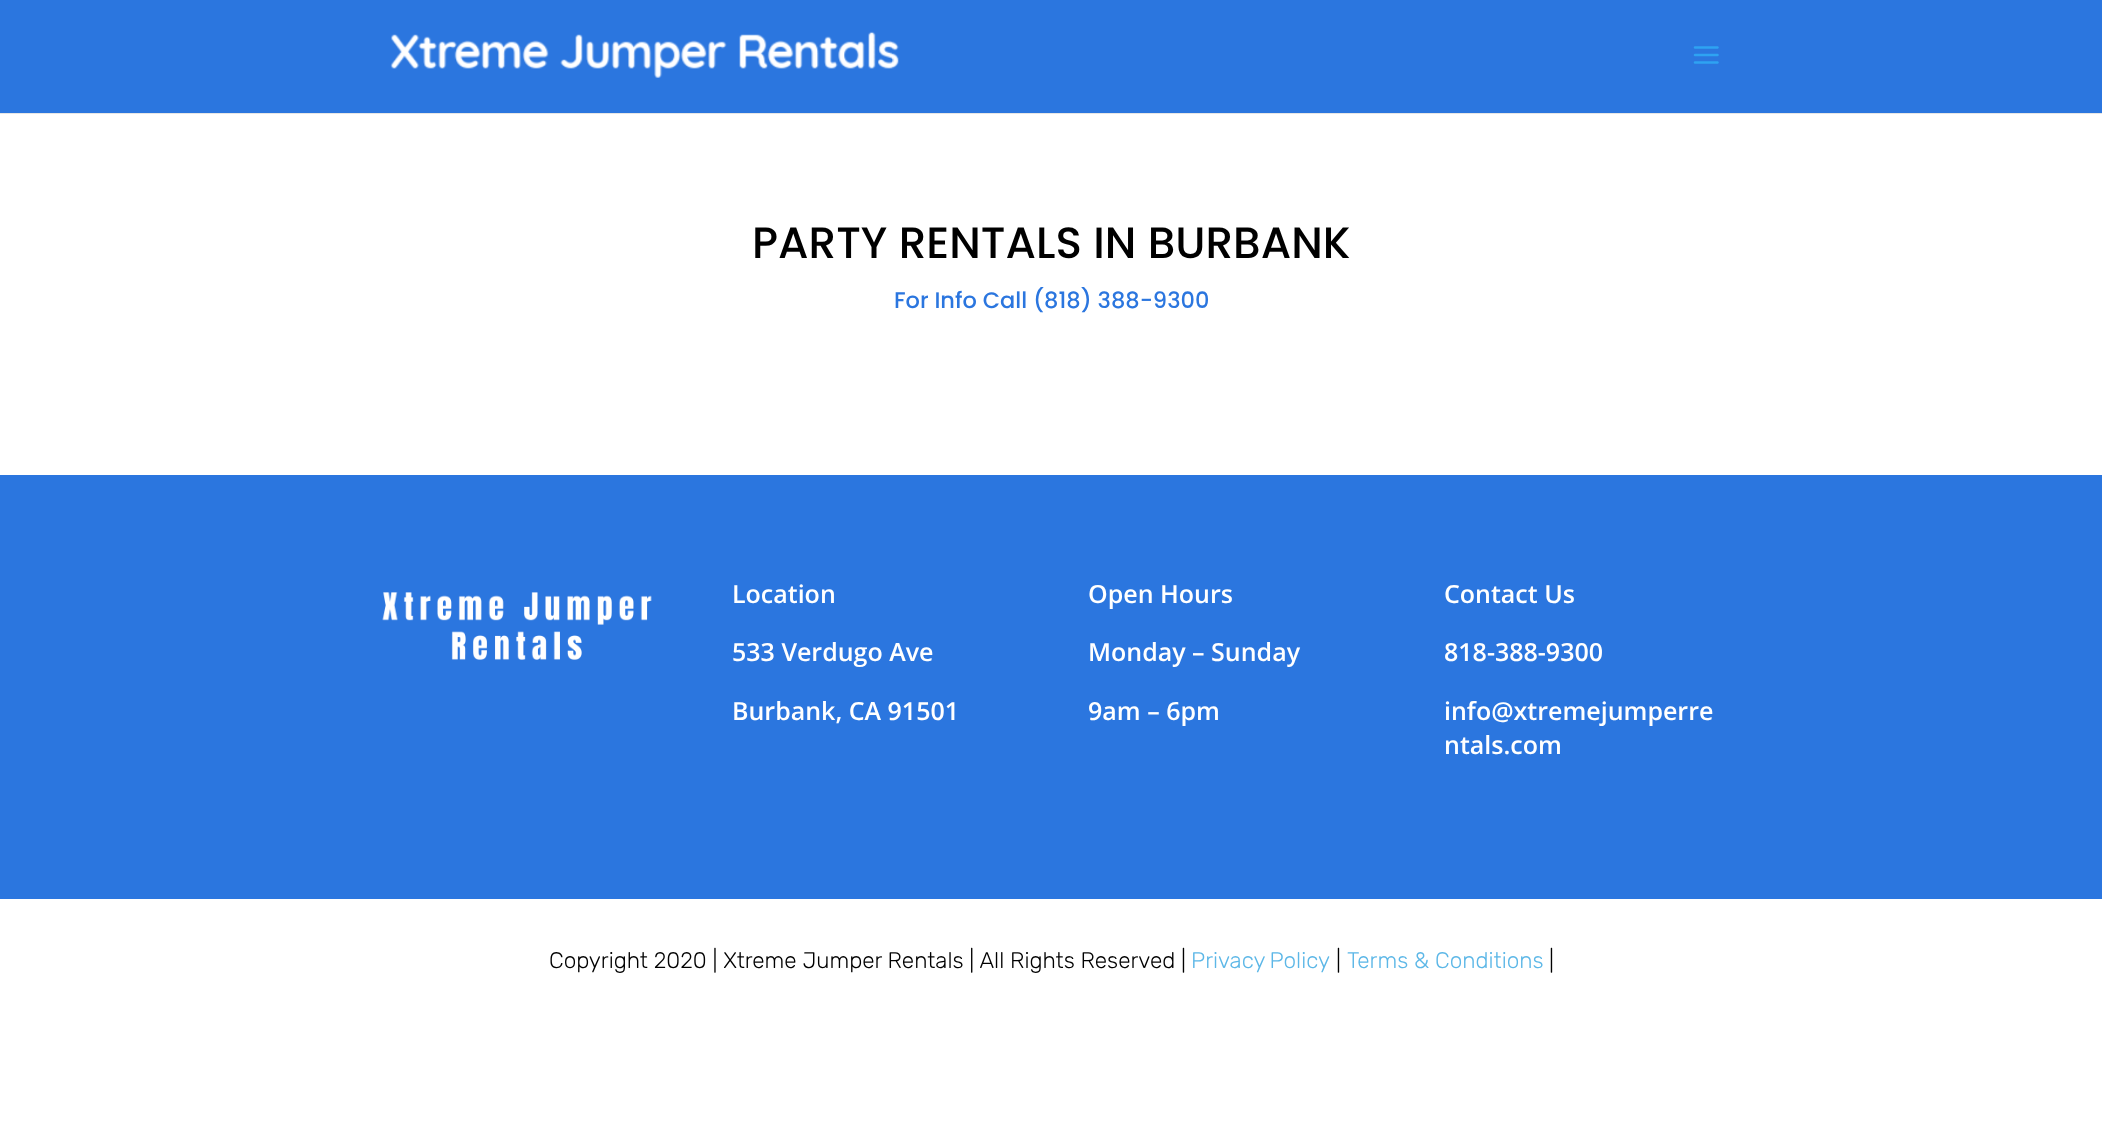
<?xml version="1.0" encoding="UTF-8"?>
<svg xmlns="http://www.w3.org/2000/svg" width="2102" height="1122">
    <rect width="100%" height="100%" fill="#FFFFFF"/>
    <path d="M 0 112 V 114 H 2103 V 1 H 2102 V 112 Z" fill="#E6E6E6"/>
    <rect x="0" y="0" width="2102" height="113" fill="#2B76DF"/>
    <image x="390" y="31" width="509" height="47" href="img_01.png"/>
    <image x="1693" y="46" width="26" height="18" href="img_02.png"/>
    <text x="752" y="258" font-family="Poppins" font-size="43.75" font-weight="500" fill="#000000">PARTY RENTALS IN BURBANK</text>
    <text x="894" y="308" font-family="Poppins" font-size="22.5" font-weight="500" fill="#2B76DF">For Info Call (818) 388-9300</text>
    <rect x="0" y="475" width="2102" height="424" fill="#2B76DF"/>
    <image x="382" y="592" width="270" height="68" href="img_03.png"/>
    <text x="732" y="603" font-family="Open Sans" font-size="25" font-weight="600" fill="#FFFFFF">Location</text>
    <text x="732" y="661" font-family="Open Sans" font-size="25" font-weight="600" fill="#FFFFFF">533 Verdugo Ave</text>
    <text x="732" y="720" font-family="Open Sans" font-size="25" font-weight="600" fill="#FFFFFF">Burbank, CA 91501</text>
    <text x="1088" y="603" font-family="Open Sans" font-size="25" font-weight="600" fill="#FFFFFF">Open Hours</text>
    <text x="1088" y="661" font-family="Open Sans" font-size="25" font-weight="600" fill="#FFFFFF">Monday – Sunday</text>
    <text x="1088" y="720" font-family="Open Sans" font-size="25" font-weight="600" fill="#FFFFFF">9am – 6pm</text>
    <text x="1444" y="603" font-family="Open Sans" font-size="25" font-weight="600" fill="#FFFFFF">Contact Us</text>
    <text x="1444" y="661" font-family="Open Sans" font-size="25" font-weight="600" fill="#FFFFFF">818-388-9300</text>
    <text font-family="Open Sans" font-size="25" font-weight="600" fill="#FFFFFF">
        <tspan x="1444" y="720">info@xtremejumperre</tspan>
        <tspan x="1444" y="754">ntals.com</tspan>
    </text>
    <text x="549" y="968" font-family="Rubik" font-size="22.5" font-weight="300" fill="#000000">Copyright 2020 | Xtreme Jumper Rentals | All Rights Reserved |</text>
    <text x="1191" y="968" word-spacing="-1" font-family="Rubik" font-size="22.5" font-weight="300" fill="#5CB7E7">Privacy Policy</text>
    <text x="1336" y="968" font-family="Rubik" font-size="22.5" font-weight="300" fill="#000000">|</text>
    <text x="1347" y="968" font-family="Rubik" font-size="22.5" font-weight="300" fill="#5CB7E7">Terms &amp; Conditions</text>
    <text x="1549" y="968" font-family="Rubik" font-size="22.5" font-weight="300" fill="#000000">|</text>
</svg>
